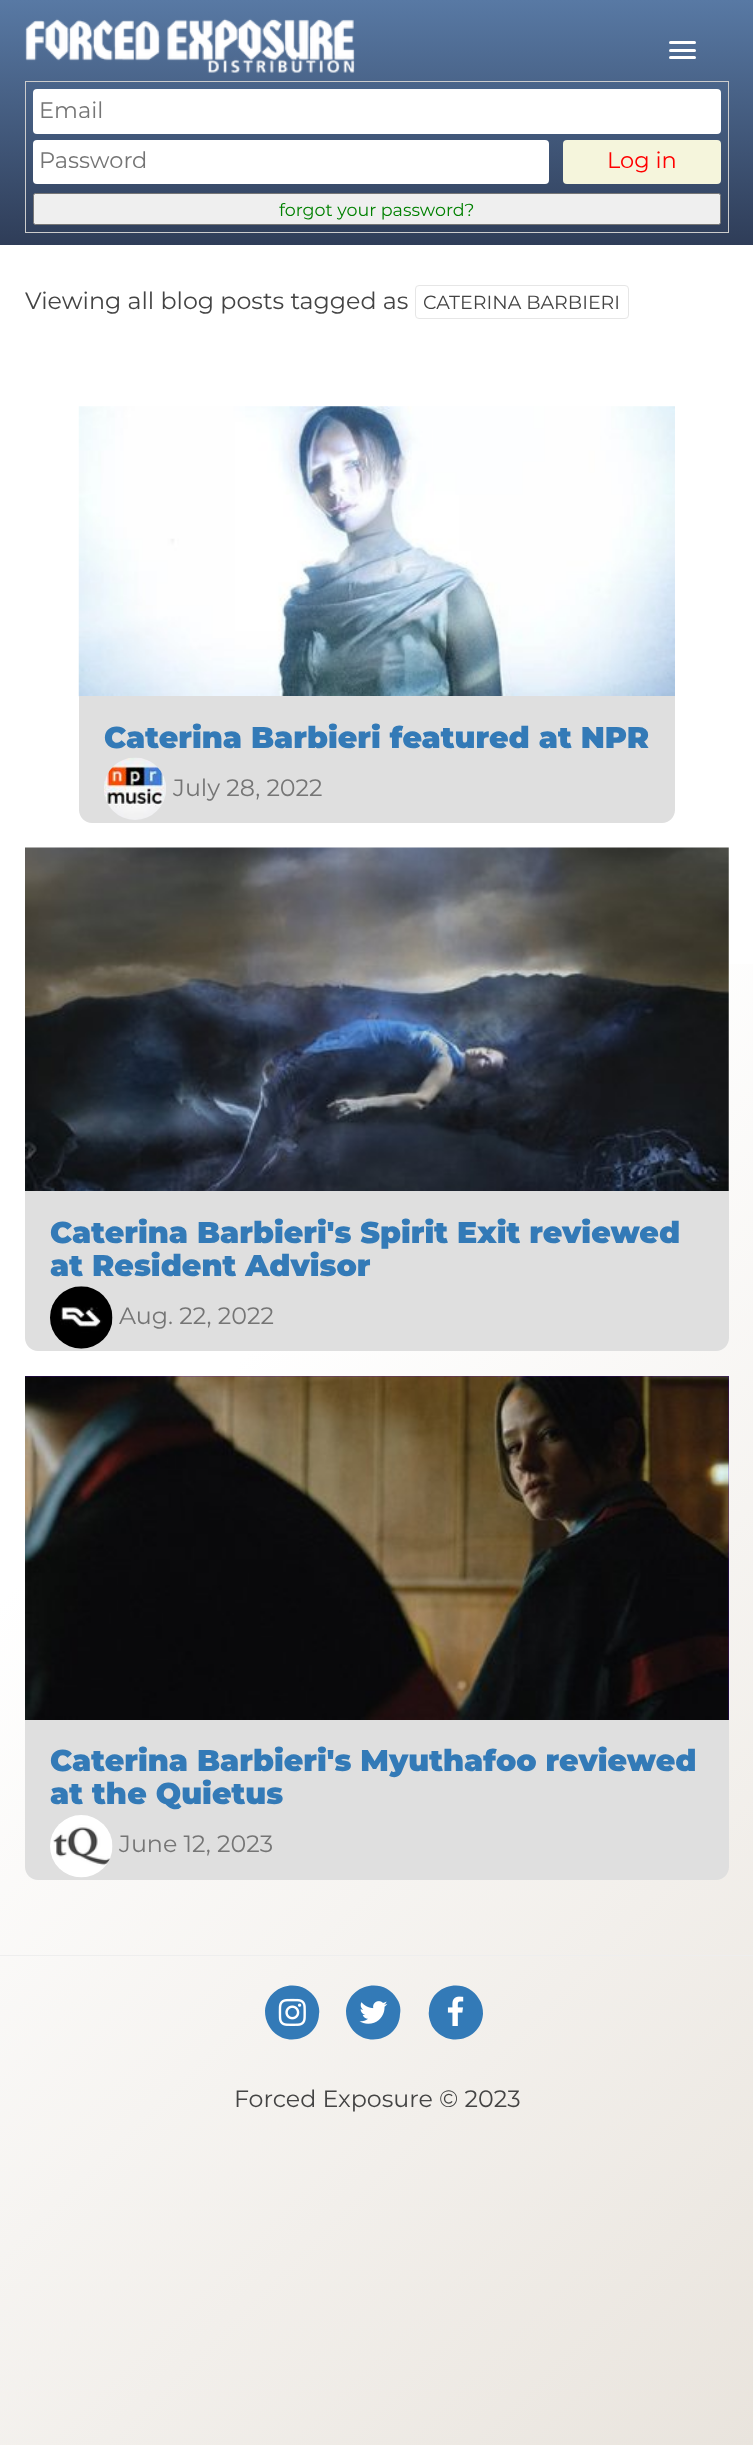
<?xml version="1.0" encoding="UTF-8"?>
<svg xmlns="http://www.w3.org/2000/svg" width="753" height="2445">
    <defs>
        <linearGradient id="g1" gradientUnits="userSpaceOnUse" x1="-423" y1="423" x2="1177" y2="2022"><stop offset="0" stop-color="#FFFFFF"/><stop offset="0.5" stop-color="#FFFFFF"/><stop offset="1" stop-color="#E9E4DD"/></linearGradient>
        <linearGradient id="g2" gradientUnits="userSpaceOnUse" x1="377" y1="0" x2="377" y2="245"><stop offset="0" stop-color="#5879A4"/><stop offset="1" stop-color="#2F3D58"/></linearGradient>
    </defs>
    <rect width="100%" height="100%" fill="#FFFFFF"/>
    <rect x="0" y="964" width="753" height="1481" fill="url(#g1)"/>
    <rect x="0" y="0" width="753" height="245" fill="url(#g2)"/>
    <image x="25" y="18" width="330" height="55" href="img_01.png"/>
    <rect x="669" y="41" width="27" height="3" rx="1.5" fill="#FFFFFF"/>
    <rect x="669" y="49" width="27" height="3" rx="1.5" fill="#FFFFFF"/>
    <rect x="669" y="56" width="27" height="3" rx="1.5" fill="#FFFFFF"/>
    <rect x="25.5" y="81.5" width="703" height="151" fill="none" stroke="#CCCCCC"/>
    <rect x="33" y="89" width="688" height="45" rx="4" fill="#FFFFFF"/>
    <text x="39" y="118" font-family="Montserrat" font-size="22.5" fill="#757575">Email</text>
    <rect x="33" y="140" width="516" height="44" rx="4" fill="#FFFFFF"/>
    <text x="39" y="168" font-family="Montserrat" font-size="22.5" fill="#757575">Password</text>
    <rect x="563" y="140" width="158" height="44" rx="4" fill="#F5F5DC"/>
    <text x="607" y="168" font-family="Montserrat" font-size="22.5" fill="#FF0000">Log in</text>
    <rect x="33.5" y="193.5" width="687" height="31" rx="2" fill="#EFEFEF" stroke="#767676"/>
    <text x="279" y="216" font-family="Montserrat" font-size="17.5" fill="#008000">forgot your password?</text>
    <text x="25" y="309" font-family="Montserrat" font-size="23.75" fill="#444444">Viewing all blog posts tagged as</text>
    <rect x="415.5" y="285.5" width="213" height="33" rx="3.5" fill="none" stroke="#E6E6E6"/>
    <text x="423" y="309" font-family="Montserrat" font-size="19" fill="#444444">CATERINA BARBIERI</text>
    <image x="78" y="406" width="597" height="291" href="img_02.png"/>
    <path d="M 79 696 H 675 V 810 C 675 817 669 823 662 823 H 92 C 85 823 79 817 79 810 Z" fill="#DFDFDF"/>
    <text x="104" y="748" font-family="Montserrat" font-size="30" font-weight="900" fill="#337AB7">Caterina Barbieri featured at NPR</text>
    <image x="104" y="757" width="62" height="63" href="img_03.png"/>
    <text x="173" y="796" font-family="Montserrat" font-size="23.75" fill="#757575">July 28, 2022</text>
    <image x="25" y="847" width="704" height="344" href="img_04.png"/>
    <path d="M 25 1191 H 729 V 1338 C 729 1345 723 1351 716 1351 H 38 C 31 1351 25 1345 25 1338 Z" fill="#DFDFDF"/>
    <text font-family="Montserrat" font-size="30" font-weight="900" fill="#337AB7">
        <tspan x="50" y="1243">Caterina Barbieri's Spirit Exit reviewed</tspan>
        <tspan x="50" y="1276">at Resident Advisor</tspan>
    </text>
    <image x="50" y="1286" width="63" height="63" href="img_05.png"/>
    <text x="119" y="1324" font-family="Montserrat" font-size="23.75" fill="#757575">Aug. 22, 2022</text>
    <rect x="25" y="1376" width="704" height="344" fill="#560ACC"/>
    <image x="25" y="1376" width="704" height="344" href="img_06.png"/>
    <path d="M 25 1720 H 729 V 1867 C 729 1874 723 1880 716 1880 H 38 C 31 1880 25 1874 25 1867 Z" fill="#DFDFDF"/>
    <text font-family="Montserrat" font-size="30" font-weight="900" fill="#337AB7">
        <tspan x="50" y="1771">Caterina Barbieri's Myuthafoo reviewed</tspan>
        <tspan x="50" y="1804">at the Quietus</tspan>
    </text>
    <image x="50" y="1815" width="63" height="63" href="img_07.png"/>
    <text x="119" y="1852" font-family="Montserrat" font-size="23.75" fill="#757575">June 12, 2023</text>
    <rect x="0" y="1955" width="753" height="1" fill="#EEEEEE"/>
    <path d="M 316 1999 C 318 2003 320 2009 319 2014 C 318 2041 282 2049 269 2026 C 266 2021 265 2016 265 2011 C 267 1984 302 1976 316 1999 Z" fill="#337AB7"/>
    <image x="278" y="1998" width="28" height="28" href="img_08.png"/>
    <path d="M 397 1999 C 400 2003 401 2009 400 2014 C 399 2041 363 2049 350 2026 C 347 2021 346 2016 346 2011 C 348 1984 384 1976 397 1999 Z" fill="#337AB7"/>
    <image x="359" y="2001" width="29" height="23" href="img_09.png"/>
    <path d="M 479 1999 C 482 2003 483 2009 483 2014 C 481 2041 446 2049 432 2026 C 430 2021 428 2016 429 2011 C 430 1984 466 1976 479 1999 Z" fill="#337AB7"/>
    <image x="447" y="1996" width="17" height="30" href="img_10.png"/>
    <text x="234" y="2107" font-family="Montserrat" font-size="23.75" fill="#444444">Forced Exposure © 2023</text>
</svg>
